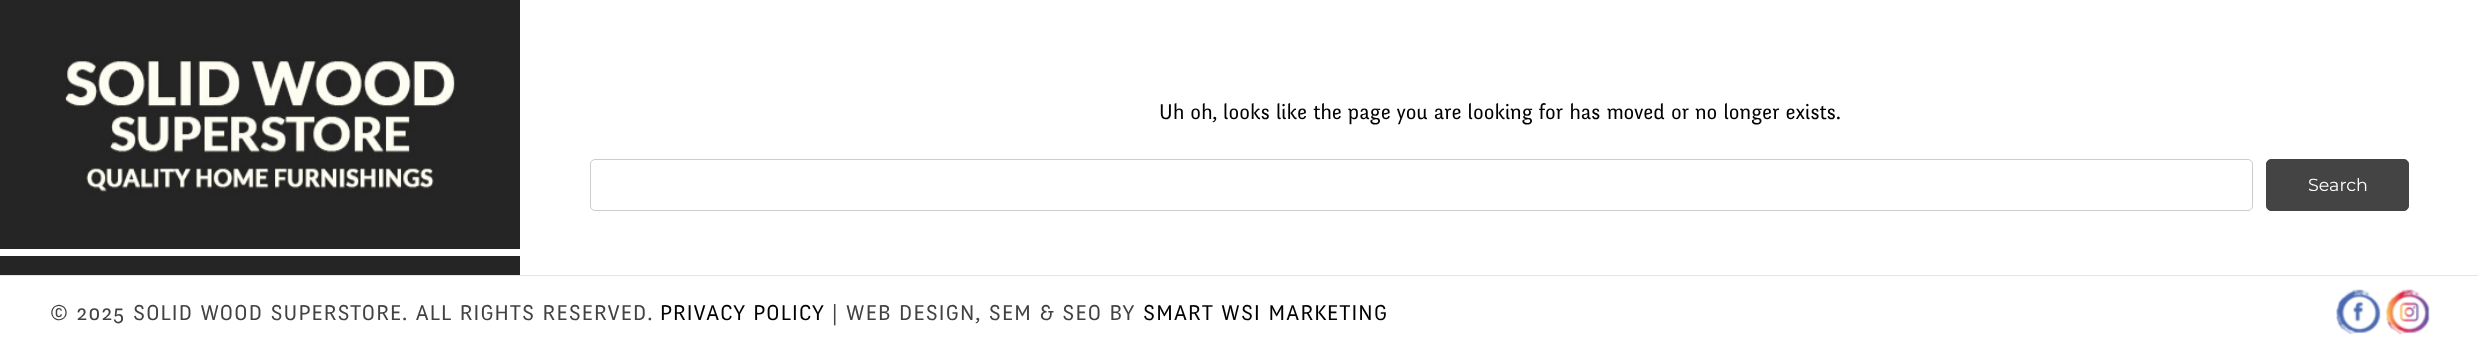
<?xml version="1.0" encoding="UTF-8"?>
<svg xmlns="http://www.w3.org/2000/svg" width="2478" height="346">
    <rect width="100%" height="100%" fill="#FFFFFF"/>
    <rect x="0" y="0" width="520" height="275" fill="#252525"/>
    <rect x="0" y="249" width="520" height="7" fill="#FFFFFF"/>
    <image x="65" y="57" width="390" height="137" href="img_01.png"/>
    <text x="1159" y="119" font-family="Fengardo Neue" font-size="21.25" fill="#000000">Uh oh, looks like the page you are looking for has moved or no longer exists.</text>
    <rect x="590.5" y="159.5" width="1662" height="51" rx="4.5" fill="none" stroke="#CCCCCC"/>
    <rect x="2266.5" y="159.5" width="142" height="51" rx="4.5" fill="#444444" stroke="#444444"/>
    <text x="2308" y="191" font-family="Montserrat" font-size="17.5" font-weight="100" fill="#FFFFFF">Search</text>
    <rect x="0" y="275" width="2478" height="1" fill="#E5E5E5"/>
    <text x="50" y="320" font-family="Fengardo Neue" font-size="21.25" letter-spacing="1.25" fill="#424242">© 2025 SOLID WOOD SUPERSTORE. ALL RIGHTS RESERVED.</text>
    <text x="660" y="320" font-family="Fengardo Neue" font-size="21.25" letter-spacing="1.25" fill="#000000">PRIVACY POLICY</text>
    <text x="832" y="320" font-family="Fengardo Neue" font-size="21.25" letter-spacing="1.25" fill="#424242">| WEB DESIGN, SEM &amp; SEO BY</text>
    <text x="1143" y="320" font-family="Fengardo Neue" font-size="21.25" letter-spacing="1.25" fill="#000000">SMART WSI MARKETING</text>
    <image x="2336" y="289" width="45" height="45" href="img_02.png"/>
    <image x="2386" y="289" width="44" height="45" href="img_03.png"/>
</svg>
